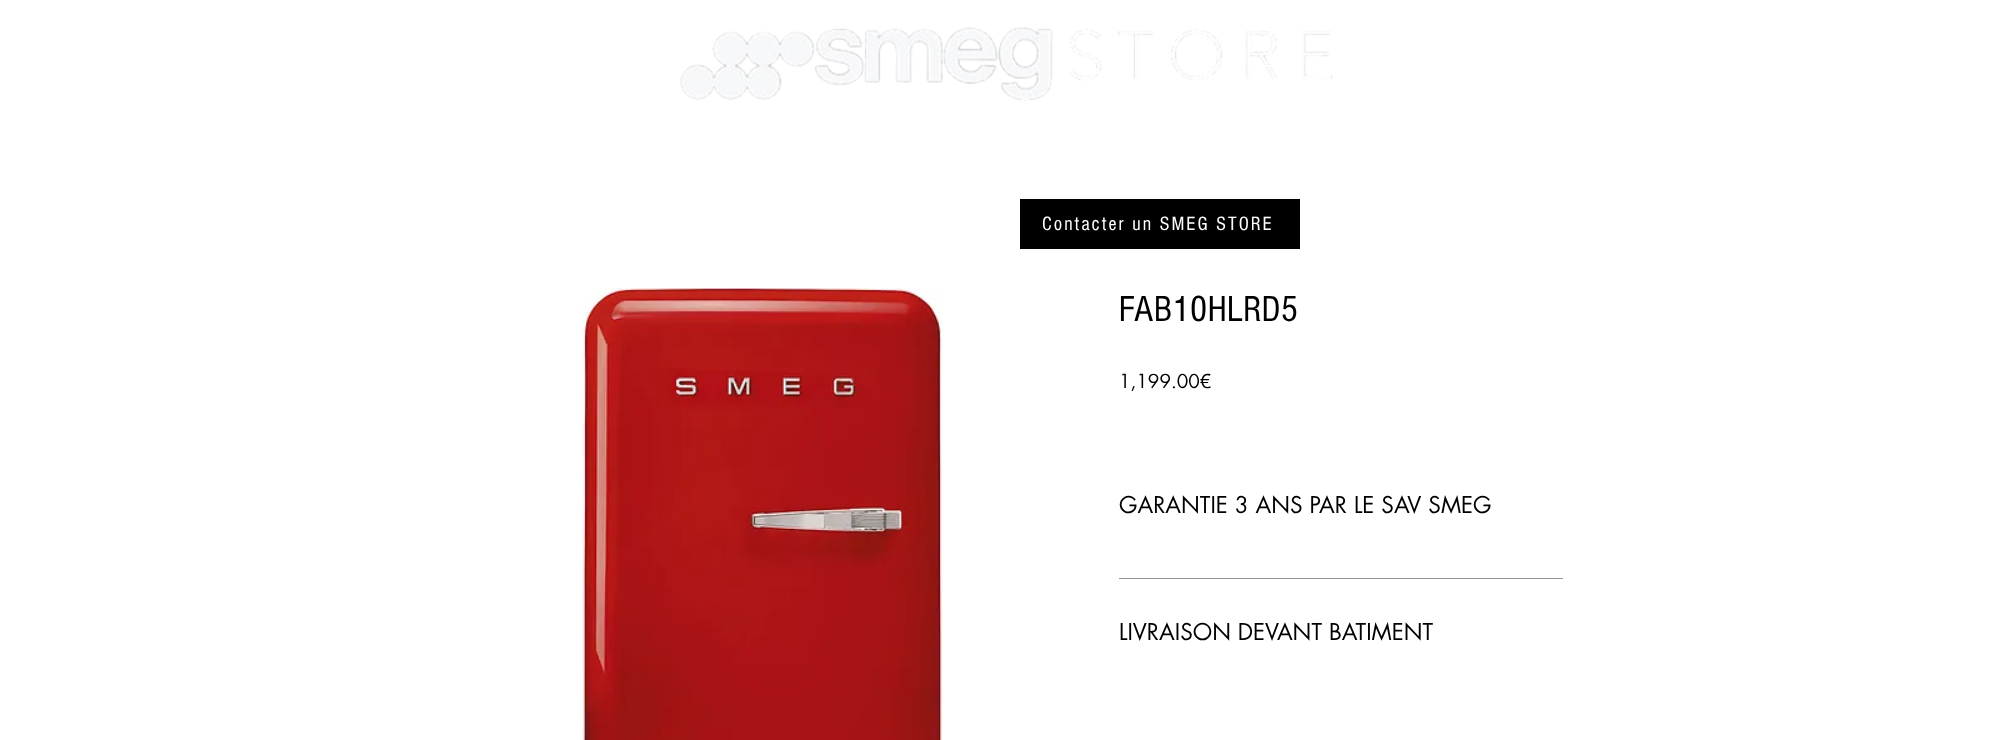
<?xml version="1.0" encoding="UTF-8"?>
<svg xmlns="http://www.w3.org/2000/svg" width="2012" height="740">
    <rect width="100%" height="100%" fill="#FFFFFF"/>
    <image x="680" y="27" width="653" height="74" href="img_01.png"/>
    <rect x="1020" y="199" width="280" height="50" fill="#000000"/>
    <text x="1042" y="230" font-family="'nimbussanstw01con'" font-size="20" letter-spacing="2" fill="#FFFFFF">Contacter un SMEG STORE</text>
    <image x="581" y="288" width="362" height="452" href="img_02.png"/>
    <text x="1119" y="321" font-family="'nimbussanstw01con'" font-size="37.5" fill="#000000">FAB10HLRD5</text>
    <text x="1119" y="388" font-family="futura" font-size="18.75" fill="#000000">1,199.00€</text>
    <rect x="1119" y="578" width="444" height="1" fill="#959596"/>
    <text x="1119" y="513" font-family="futura" font-size="22.5" fill="#000000">GARANTIE 3 ANS PAR LE SAV SMEG</text>
    <text x="1119" y="640" font-family="futura" font-size="22.5" fill="#000000">LIVRAISON DEVANT BATIMENT</text>
</svg>
